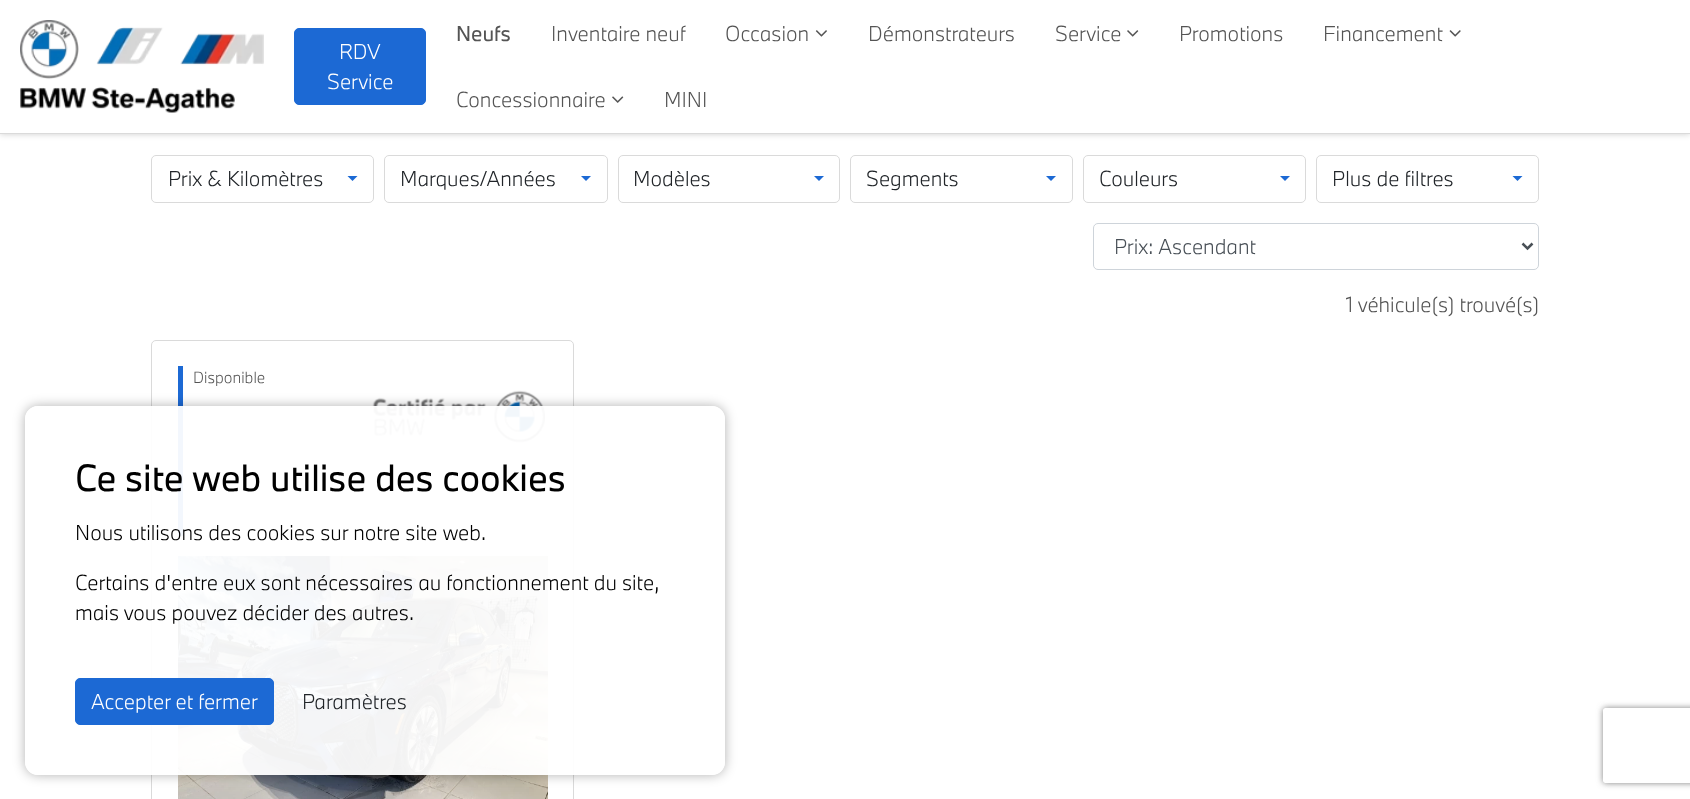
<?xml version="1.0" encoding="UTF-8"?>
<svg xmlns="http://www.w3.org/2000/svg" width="1690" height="799">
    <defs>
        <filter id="blur1" x="-50%" y="-200%" width="200%" height="500%"><feGaussianBlur stdDeviation="3"/></filter>
        <clipPath id="clip1"><path d="M 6 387 H 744 V 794 H 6 Z M 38 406 H 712 C 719 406 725 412 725 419 V 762 C 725 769 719 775 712 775 H 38 C 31 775 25 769 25 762 V 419 C 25 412 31 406 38 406 Z" clip-rule="evenodd"/></clipPath>
        <filter id="blur2" x="-50%" y="-200%" width="200%" height="500%"><feGaussianBlur stdDeviation="6"/></filter>
        <clipPath id="clip2"><path d="M 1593 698 H 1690 V 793 H 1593 Z M 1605.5 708 H 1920.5 C 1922 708 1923 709 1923 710.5 V 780.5 C 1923 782 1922 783 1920.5 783 H 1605.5 C 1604 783 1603 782 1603 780.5 V 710.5 C 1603 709 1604 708 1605.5 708 Z" clip-rule="evenodd"/></clipPath>
    </defs>
    <rect width="100%" height="100%" fill="#FFFFFF"/>
    <rect x="0" y="0" width="1690" height="134" fill="#000000" fill-opacity="0.2" filter="url(#blur1)"/>
    <rect x="0" y="0" width="1690" height="133" fill="#FFFFFF"/>
    <rect x="0" y="133" width="1690" height="1" fill="#DADADA"/>
    <image x="20" y="20" width="244" height="93" href="img_01.png"/>
    <rect x="294.5" y="28.5" width="131" height="76" rx="4.5" fill="#1C69D4" stroke="#1C69D4"/>
    <text x="339" y="59" font-family="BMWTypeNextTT" font-size="20" font-weight="300" fill="#FFFFFF">RDV</text>
    <text x="327" y="89" font-family="BMWTypeNextTT" font-size="20" font-weight="300" fill="#FFFFFF">Service</text>
    <text x="456" y="41" font-family="BMWTypeNextTT" font-size="20" fill="#545454">Neufs</text>
    <text x="551" y="41" font-family="BMWTypeNextTT" font-size="20" font-weight="300" fill="#545454">Inventaire neuf</text>
    <text x="725" y="41" font-family="BMWTypeNextTT" font-size="20" font-weight="300" fill="#545454">Occasion</text>
    <image x="815" y="30" width="12" height="7" href="img_02.png"/>
    <text x="868" y="41" font-family="BMWTypeNextTT" font-size="20" font-weight="300" fill="#545454">Démonstrateurs</text>
    <text x="1055" y="41" font-family="BMWTypeNextTT" font-size="20" font-weight="300" fill="#545454">Service</text>
    <image x="1127" y="30" width="12" height="7" href="img_03.png"/>
    <text x="1179" y="41" font-family="BMWTypeNextTT" font-size="20" font-weight="300" fill="#545454">Promotions</text>
    <text x="1323" y="41" font-family="BMWTypeNextTT" font-size="20" font-weight="300" fill="#545454">Financement</text>
    <image x="1449" y="30" width="12" height="7" href="img_04.png"/>
    <text x="456" y="107" font-family="BMWTypeNextTT" font-size="20" font-weight="300" fill="#545454">Concessionnaire</text>
    <image x="612" y="96" width="12" height="7" href="img_05.png"/>
    <text x="664" y="107" font-family="BMWTypeNextTT" font-size="20" font-weight="300" fill="#545454">MINI</text>
    <rect x="151.5" y="155.5" width="222" height="47" rx="4.5" fill="none" stroke="#DADADA"/>
    <text x="168" y="186" font-family="BMWTypeNextTT" font-size="20" font-weight="300" fill="#212529">Prix &amp; Kilomètres</text>
    <path d="M 347.5 176 H 357.5 L 352.5 181 Z" fill="#1C69D4"/>
    <rect x="384.5" y="155.5" width="223" height="47" rx="4.5" fill="none" stroke="#DADADA"/>
    <text x="400" y="186" font-family="BMWTypeNextTT" font-size="20" font-weight="300" fill="#212529">Marques/Années</text>
    <path d="M 581 176 H 591 L 586 181 Z" fill="#1C69D4"/>
    <rect x="618.5" y="155.5" width="221" height="47" rx="4.5" fill="none" stroke="#DADADA"/>
    <text x="633" y="186" font-family="BMWTypeNextTT" font-size="20" font-weight="300" fill="#212529">Modèles</text>
    <path d="M 814 176 H 824 L 819 181 Z" fill="#1C69D4"/>
    <rect x="850.5" y="155.5" width="222" height="47" rx="4.5" fill="none" stroke="#DADADA"/>
    <text x="866" y="186" font-family="BMWTypeNextTT" font-size="20" font-weight="300" fill="#212529">Segments</text>
    <path d="M 1046 176 H 1056 L 1051 181 Z" fill="#1C69D4"/>
    <rect x="1083.5" y="155.5" width="222" height="47" rx="4.5" fill="none" stroke="#DADADA"/>
    <text x="1099" y="186" font-family="BMWTypeNextTT" font-size="20" font-weight="300" fill="#212529">Couleurs</text>
    <path d="M 1280 176 H 1290 L 1285 181 Z" fill="#1C69D4"/>
    <rect x="1316.5" y="155.5" width="222" height="47" rx="4.5" fill="none" stroke="#DADADA"/>
    <text x="1332" y="186" font-family="BMWTypeNextTT" font-size="20" font-weight="300" fill="#212529">Plus de filtres</text>
    <path d="M 1512.5 176 H 1522.5 L 1517.5 181 Z" fill="#1C69D4"/>
    <rect x="1093.5" y="223.5" width="445" height="46" rx="4.5" fill="none" stroke="#CED4DA"/>
    <path d="M 1522.5 243.5 L 1527.5 248.5 L 1532.5 243.5" fill="none" stroke="#495057" stroke-width="2.5"/>
    <text x="1114" y="254" font-family="BMWTypeNextTT" font-size="20" font-weight="300" fill="#495057">Prix: Ascendant</text>
    <text x="1346" y="312" font-family="BMWTypeNextTT" font-size="20" font-weight="300" fill="#545454">1 véhicule(s) trouvé(s)</text>
    <rect x="151.5" y="340.5" width="422" height="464" rx="4.5" fill="none" stroke="#DADADA"/>
    <rect x="178" y="366" width="5" height="170" fill="#1C69D4"/>
    <text x="193" y="383" font-family="BMWTypeNextTT" font-size="15" font-weight="300" fill="#545454">Disponible</text>
    <image x="372" y="390" width="173" height="53" href="img_06.png"/>
    <image x="178" y="556" width="370" height="243" href="img_07.png"/>
    <path d="M 516 692.5 L 511.5 697 L 519 705 L 511.5 713 L 516 717.5 L 528.5 705 Z" fill="#FFFFFF" fill-opacity="0.5"/>
    <g clip-path="url(#clip1)">
        <rect x="25" y="406" width="700" height="369" rx="13" fill="#000000" fill-opacity="0.3" filter="url(#blur2)"/>
    </g>
    <rect x="25" y="406" width="700" height="369" rx="13" fill="#FFFFFF" fill-opacity="0.95"/>
    <text x="75" y="491" font-family="BMWTypeNextTT" font-size="35" fill="#000000">Ce site web utilise des cookies</text>
    <text x="75" y="540" font-family="BMWTypeNextTT" font-size="20" font-weight="300" fill="#000000">Nous utilisons des cookies sur notre site web.</text>
    <text font-family="BMWTypeNextTT" font-size="20" font-weight="300" fill="#000000">
        <tspan x="75" y="590">Certains d'entre eux sont nécessaires au fonctionnement du site,</tspan>
        <tspan x="75" y="620">mais vous pouvez décider des autres.</tspan>
    </text>
    <rect x="75.5" y="678.5" width="198" height="46" rx="4.5" fill="#1C69D4" stroke="#1C69D4"/>
    <text x="91" y="709" font-family="BMWTypeNextTT" font-size="20" font-weight="300" fill="#FFFFFF">Accepter et fermer</text>
    <text x="302" y="709" font-family="BMWTypeNextTT" font-size="20" font-weight="300" fill="#212529">Paramètres</text>
    <g clip-path="url(#clip2)">
        <rect x="1603" y="708" width="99" height="75" rx="2.5" fill="#808080" filter="url(#blur1)"/>
    </g>
</svg>
